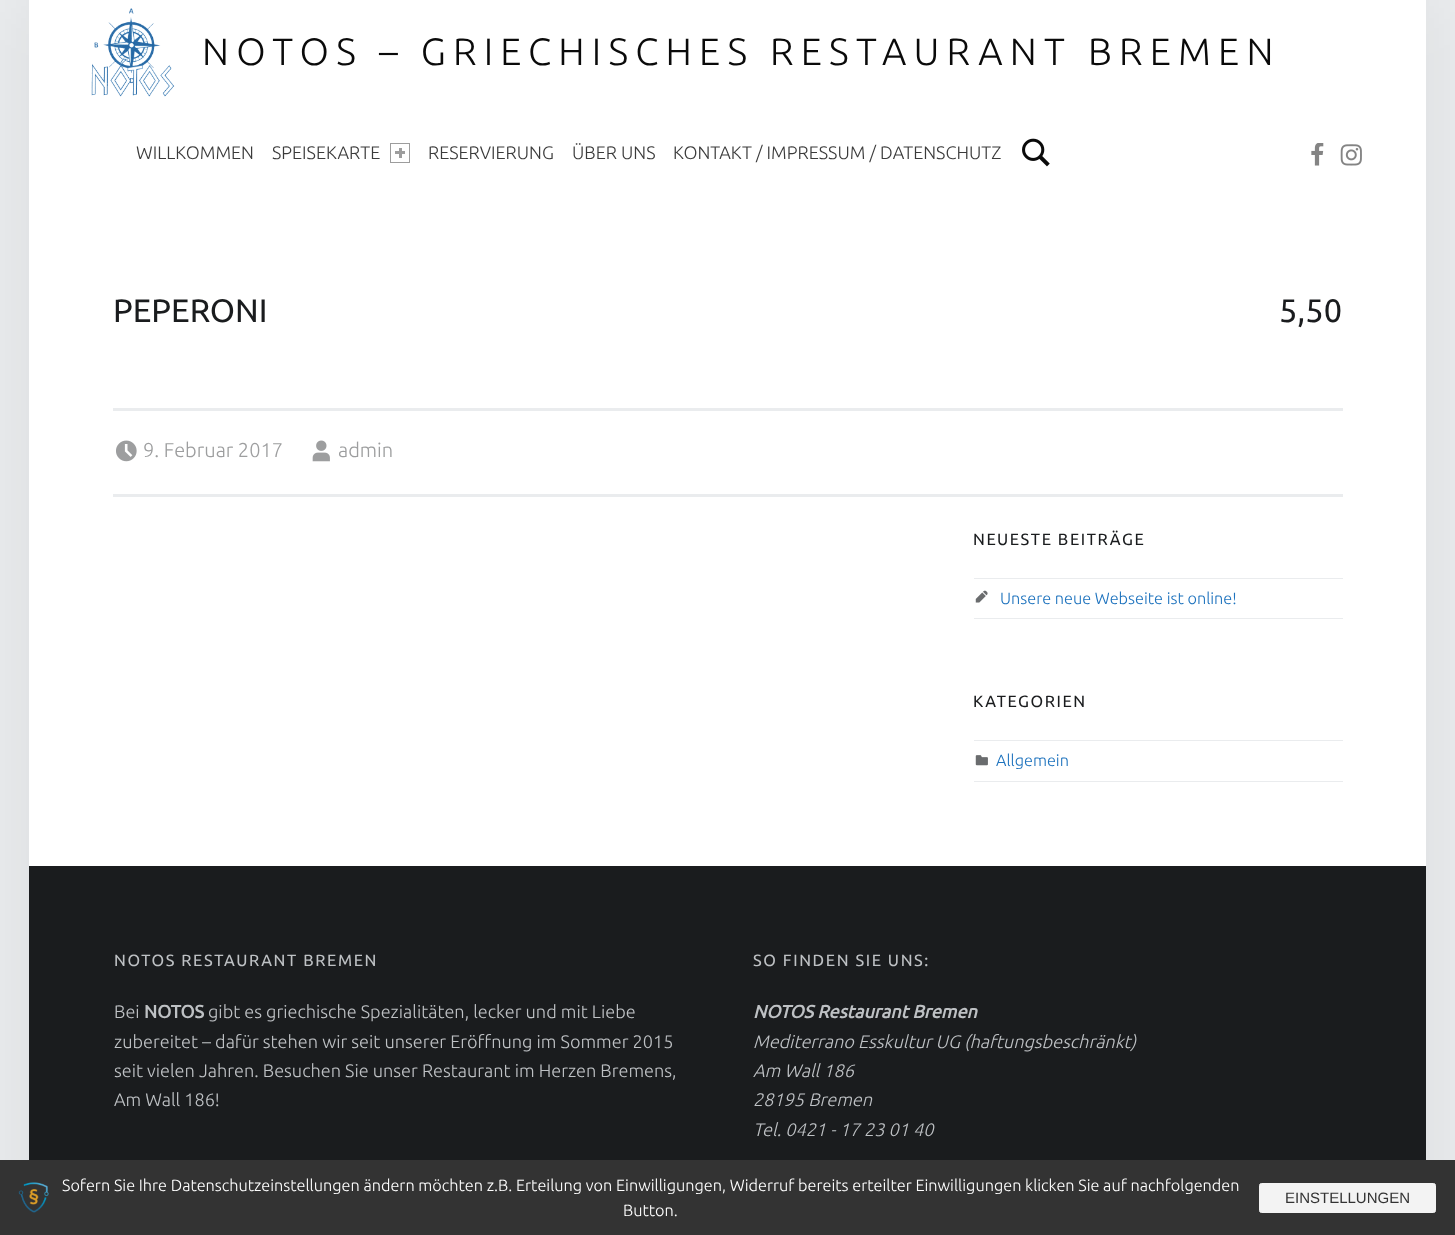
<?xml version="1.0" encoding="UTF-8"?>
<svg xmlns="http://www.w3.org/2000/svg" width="1455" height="1235">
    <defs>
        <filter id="blur1" x="-50%" y="-200%" width="200%" height="500%"><feGaussianBlur stdDeviation="36"/></filter>
    </defs>
    <rect width="100%" height="100%" fill="#EAECEE"/>
    <rect x="29" y="0" width="1397" height="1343" fill="#000000" fill-opacity="0.07" filter="url(#blur1)"/>
    <rect x="29" y="0" width="1397" height="866" fill="#FFFFFF"/>
    <image x="91" y="8" width="84" height="89" href="img_01.png"/>
    <text x="202" y="65" font-family="Ubuntu" font-size="38" font-weight="300" letter-spacing="7.2" fill="#0A0A0A">NOTOS – GRIECHISCHES RESTAURANT BREMEN</text>
    <text x="136" y="159" font-family="Ubuntu" font-size="18.1" font-weight="300" fill="#3B3B3B">WILLKOMMEN</text>
    <text x="272" y="159" font-family="Ubuntu" font-size="18.1" font-weight="300" fill="#3B3B3B">SPEISEKARTE</text>
    <rect x="390.5" y="143.5" width="19" height="19" fill="none" stroke="#9D9D9D"/>
    <rect x="395" y="151" width="10" height="3" fill="#9D9D9D"/>
    <rect x="399" y="148" width="3" height="10" fill="#9D9D9D"/>
    <text x="428" y="159" font-family="Ubuntu" font-size="18.1" font-weight="300" fill="#3B3B3B">RESERVIERUNG</text>
    <text x="572" y="159" font-family="Ubuntu" font-size="18.1" font-weight="300" fill="#3B3B3B">ÜBER UNS</text>
    <text x="673" y="159" font-family="Ubuntu" font-size="18.1" font-weight="300" fill="#3B3B3B">KONTAKT / IMPRESSUM / DATENSCHUTZ</text>
    <image x="1022" y="138" width="28" height="29" href="img_02.png"/>
    <image x="1311" y="143" width="13" height="23" href="img_03.png"/>
    <image x="1340" y="144" width="22" height="22" href="img_04.png"/>
    <text x="113" y="322" font-family="Ubuntu" font-size="32.5" fill="#1A1C1E">PEPERONI</text>
    <text x="1279" y="322" font-family="Ubuntu" font-size="32.5" fill="#1A1C1E">5,50</text>
    <rect x="113" y="408" width="1230" height="3" fill="#EAECEE"/>
    <rect x="113" y="494" width="1230" height="3" fill="#EAECEE"/>
    <image x="116" y="440" width="21" height="22" href="img_05.png"/>
    <text x="143" y="457" font-family="Ubuntu" font-size="20" font-weight="300" fill="#9D9E9F">9. Februar 2017</text>
    <image x="312" y="440" width="18" height="22" href="img_06.png"/>
    <text x="338" y="457" font-family="Ubuntu" font-size="20" font-weight="300" fill="#9D9E9F">admin</text>
    <text x="973" y="545" font-family="Ubuntu" font-size="16.25" letter-spacing="1.6" fill="#1A1C1E">NEUESTE BEITRÄGE</text>
    <rect x="974" y="578" width="369" height="1" fill="#EAECEE"/>
    <rect x="974" y="618" width="369" height="1" fill="#EAECEE"/>
    <image x="975" y="590" width="13" height="13" href="img_07.png"/>
    <text x="1000" y="604" font-family="Ubuntu" font-size="16.25" font-weight="300" fill="#1E73BE">Unsere neue Webseite ist online!</text>
    <text x="973" y="707" font-family="Ubuntu" font-size="16.25" letter-spacing="1.6" fill="#1A1C1E">KATEGORIEN</text>
    <rect x="974" y="740" width="369" height="1" fill="#EAECEE"/>
    <rect x="974" y="781" width="369" height="1" fill="#EAECEE"/>
    <image x="975" y="755" width="13" height="11" href="img_08.png"/>
    <text x="996" y="766" font-family="Ubuntu" font-size="16.25" font-weight="300" fill="#1E73BE">Allgemein</text>
    <rect x="29" y="866" width="1397" height="294" fill="#1A1C1E"/>
    <text x="114" y="966" font-family="Ubuntu" font-size="16.25" letter-spacing="1.6" fill="#BEC1C4">NOTOS RESTAURANT BREMEN</text>
    <text x="114" y="1018" font-family="Ubuntu" font-size="18.1" font-weight="300" fill="#BEC1C4">Bei</text>
    <text x="144" y="1018" font-family="Ubuntu" font-size="18.1" font-weight="700" fill="#BEC1C4">NOTOS</text>
    <text x="208" y="1018" font-family="Ubuntu" font-size="18.1" font-weight="300" fill="#BEC1C4">gibt es griechische Spezialitäten, lecker und mit Liebe</text>
    <text font-family="Ubuntu" font-size="18.1" font-weight="300" fill="#BEC1C4">
        <tspan x="114" y="1048">zubereitet – dafür stehen wir seit unserer Eröffnung im Sommer 2015</tspan>
        <tspan x="114" y="1077">seit vielen Jahren. Besuchen Sie unser Restaurant im Herzen Bremens,</tspan>
        <tspan x="114" y="1106">Am Wall 186!</tspan>
    </text>
    <text x="753" y="966" font-family="Ubuntu" font-size="16.25" letter-spacing="1.6" fill="#BEC1C4">SO FINDEN SIE UNS:</text>
    <text x="753" y="1018" font-family="Ubuntu" font-size="18.1" font-weight="700" font-style="italic" fill="#BEC1C4">NOTOS Restaurant Bremen</text>
    <text font-family="Ubuntu" font-size="18.1" font-weight="300" font-style="italic" fill="#BEC1C4">
        <tspan x="753" y="1048">Mediterrano Esskultur UG (haftungsbeschränkt)</tspan>
        <tspan x="753" y="1077">Am Wall 186</tspan>
        <tspan x="753" y="1106">28195 Bremen</tspan>
        <tspan x="753" y="1136">Tel. 0421 - 17 23 01 40</tspan>
    </text>
    <rect x="0" y="1160" width="1455" height="75" fill="#333333"/>
    <image x="18" y="1182" width="31" height="31" href="img_09.png"/>
    <text x="62" y="1191" font-family="Ubuntu" font-size="16.25" font-weight="300" fill="#FFFFFF">Sofern Sie Ihre Datenschutzeinstellungen ändern möchten z.B. Erteilung von Einwilligungen, Widerruf bereits erteilter Einwilligungen klicken Sie auf nachfolgenden</text>
    <text x="623" y="1216" font-family="Ubuntu" font-size="16.25" font-weight="300" fill="#FFFFFF">Button.</text>
    <rect x="1259.5" y="1183.5" width="176" height="29" rx="2" fill="#F3F3F3" stroke="#F3F3F3"/>
    <text x="1285" y="1203" font-family="Liberation Sans" font-size="15" fill="#333333">EINSTELLUNGEN</text>
</svg>
